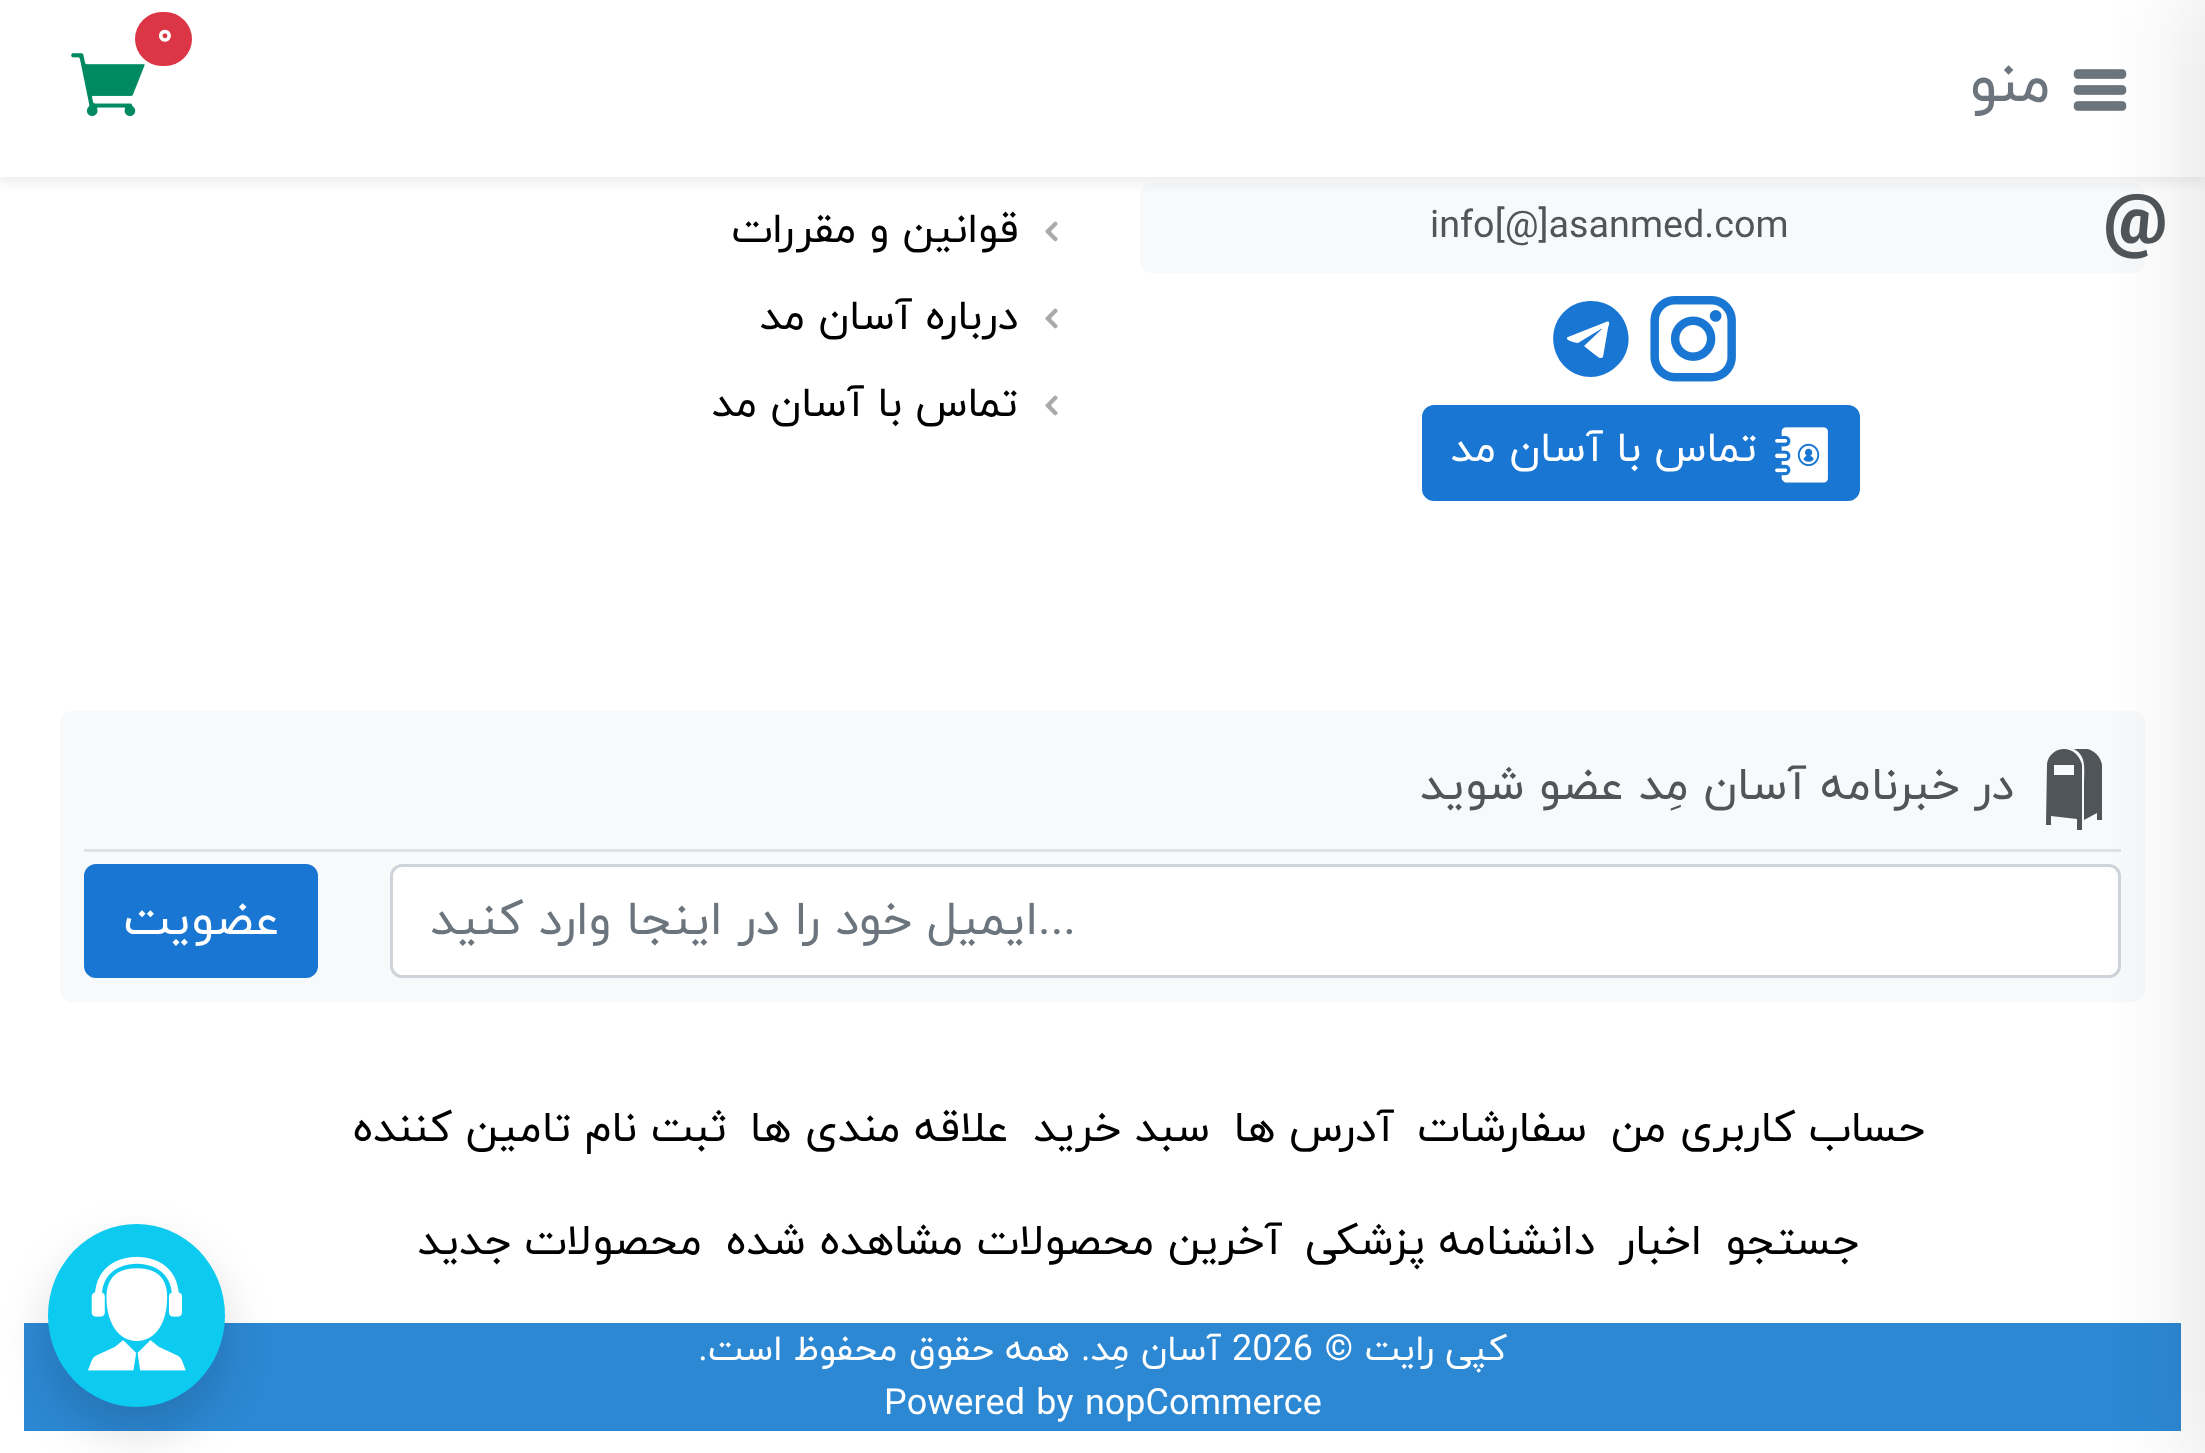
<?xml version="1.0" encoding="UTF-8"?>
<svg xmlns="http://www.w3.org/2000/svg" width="2205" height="1453">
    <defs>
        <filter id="blur1" x="-50%" y="-200%" width="200%" height="500%"><feGaussianBlur stdDeviation="6"/></filter>
        <filter id="blur2" x="-50%" y="-200%" width="200%" height="500%"><feGaussianBlur stdDeviation="45"/></filter>
        <filter id="blur3" x="-50%" y="-200%" width="200%" height="500%"><feGaussianBlur stdDeviation="24"/></filter>
    </defs>
    <rect width="100%" height="100%" fill="#FFFFFF"/>
    <rect x="1140" y="183" width="1005" height="90" rx="12" fill="#F8F9FA"/>
    <image x="2106" y="193" width="59" height="66" href="img_03.png"/>
    <rect x="0" y="6" width="2205" height="177" fill="#000000" fill-opacity="0.07" filter="url(#blur1)"/>
    <rect x="0" y="0" width="2205" height="177" fill="#FFFFFF"/>
    <image x="2073" y="69" width="54" height="42" href="img_02.png"/>
    <rect x="60" y="711" width="2085" height="291" rx="12" fill="#F8F9FA"/>
    <rect x="84" y="849" width="2037" height="3" fill="#DEE2E6"/>
    <path d="M 2102 765 V 820 H 2097 V 813 L 2084 820 V 783 C 2084 770 2087 756 2074 749 H 2087 C 2094 750 2101 757 2102 765 Z M 2082 765 V 830 H 2077 V 819 L 2051 816 V 825 H 2046 L 2047 764 C 2048 755 2056 749 2064 749 C 2073 749 2080 756 2082 765 Z M 2074 765 H 2054 V 775 H 2074 Z" fill="#50555A"/>
    <rect x="391.5" y="865.5" width="1728" height="111" rx="10.5" fill="#FFFFFF" stroke="#CED4DA" stroke-width="3"/>
    <rect x="24" y="1323" width="2157" height="108" fill="#2C88D3"/>
    <rect x="2190" y="-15" width="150" height="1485" fill="#000000" fill-opacity="0.1" filter="url(#blur2)"/>
    <image x="71" y="53" width="74" height="64" href="img_01.png"/>
    <rect x="135" y="12" width="57" height="54" rx="27" fill="#DC3545"/>
    <text x="157" y="44" font-family="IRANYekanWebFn" font-size="32" font-weight="700" fill="#FFFFFF">0</text>
    <text x="2051" y="101" font-family="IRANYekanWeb" font-size="60" direction="rtl" fill="#6C757D">منو</text>
    <text x="1430" y="237" font-family="IRANYekanWebFn" font-size="37.75" fill="#50555A">info[@]asanmed.com</text>
    <image x="1650" y="296" width="86" height="86" href="img_04.png"/>
    <path d="M 1591 301 C 1584 301 1576 303 1570 307 C 1539 328 1554 377 1591 377 C 1599 377 1606 374 1612 370 C 1643 349 1628 301 1591 301 Z M 1603 357 C 1600 360 1597 356 1594 354 L 1584 346 L 1602 329 H 1601 L 1578 343 C 1577 343 1563 340 1568 337 L 1606 322 C 1611 320 1609 325 1608 328 Z" fill="#1976D2"/>
    <rect x="1423.5" y="406.5" width="435" height="93" rx="10.5" fill="#1976D2" stroke="#1976D2" stroke-width="3"/>
    <image x="1775" y="427" width="53" height="56" href="img_05.png"/>
    <text x="1757" y="461" font-family="IRANYekanWeb" font-size="42" direction="rtl" fill="#FFFFFF">تماس با آسان مد</text>
    <image x="1045" y="221" width="13" height="21" href="img_06.png"/>
    <text x="1018" y="242" font-family="IRANYekanWeb" font-size="42" direction="rtl" fill="#000000">قوانین و مقررات</text>
    <image x="1045" y="308" width="13" height="21" href="img_06.png"/>
    <text x="1018" y="329" font-family="IRANYekanWeb" font-size="42" direction="rtl" fill="#000000">درباره آسان مد</text>
    <image x="1045" y="395" width="13" height="21" href="img_06.png"/>
    <text x="1018" y="416" font-family="IRANYekanWeb" font-size="42" direction="rtl" fill="#000000">تماس با آسان مد</text>
    <text x="2014" y="799" font-family="IRANYekanWeb" font-size="46.1" direction="rtl" fill="#50555A">در خبرنامه آسان مِد عضو شوید</text>
    <text x="1038" y="934" font-family="IRANYekanWeb" font-size="48" fill="#6C757D">...</text>
    <text x="1038" y="934" font-family="IRANYekanWeb" font-size="48" direction="rtl" fill="#6C757D">ایمیل خود را در اینجا وارد کنید</text>
    <rect x="85.5" y="865.5" width="231" height="111" rx="10.5" fill="#1976D2" stroke="#1976D2" stroke-width="3"/>
    <text x="280" y="934" font-family="IRANYekanWeb" font-size="48" direction="rtl" fill="#FFFFFF">عضویت</text>
    <text x="1925" y="1141" font-family="IRANYekanWeb" font-size="43.25" direction="rtl" fill="#000000">حساب کاربری من</text>
    <text x="1587" y="1141" font-family="IRANYekanWeb" font-size="43.25" direction="rtl" fill="#000000">سفارشات</text>
    <text x="1394" y="1141" font-family="IRANYekanWeb" font-size="43.25" direction="rtl" fill="#000000">آدرس ها</text>
    <text x="1210" y="1141" font-family="IRANYekanWeb" font-size="43.25" direction="rtl" fill="#000000">سبد خرید</text>
    <text x="1009" y="1141" font-family="IRANYekanWeb" font-size="43.25" direction="rtl" fill="#000000">علاقه مندی ها</text>
    <text x="727" y="1141" font-family="IRANYekanWeb" font-size="43.25" direction="rtl" fill="#000000">ثبت نام تامین کننده</text>
    <text x="1859" y="1254" font-family="IRANYekanWeb" font-size="43.25" direction="rtl" fill="#000000">جستجو</text>
    <text x="1702" y="1254" font-family="IRANYekanWeb" font-size="43.25" direction="rtl" fill="#000000">اخبار</text>
    <text x="1595" y="1254" font-family="IRANYekanWeb" font-size="43.25" direction="rtl" fill="#000000">دانشنامه پزشکی</text>
    <text x="1282" y="1254" font-family="IRANYekanWeb" font-size="43.25" direction="rtl" fill="#000000">آخرین محصولات مشاهده شده</text>
    <text x="702" y="1254" font-family="IRANYekanWeb" font-size="43.25" direction="rtl" fill="#000000">محصولات جدید</text>
    <text x="1507" y="1360" font-family="IRANYekanWeb" font-size="36" direction="rtl" fill="#FFFFFF">کپی رایت ©</text>
    <text x="1232" y="1360" font-family="IRANYekanWeb" font-size="36" fill="#FFFFFF">2026</text>
    <text x="1221" y="1360" font-family="IRANYekanWeb" font-size="36" direction="rtl" fill="#FFFFFF">آسان مِد. همه حقوق محفوظ است.</text>
    <text x="884" y="1414" font-family="IRANYekanWeb" font-size="36" fill="#FFFFFF">Powered by nopCommerce</text>
    <rect x="48" y="1248" width="177" height="183" rx="88.5" fill="#000000" fill-opacity="0.15" filter="url(#blur3)"/>
    <ellipse cx="136.5" cy="1315.5" rx="88.5" ry="91.5" fill="#0DCAF0"/>
    <image x="88" y="1256" width="98" height="115" href="img_07.png"/>
</svg>
